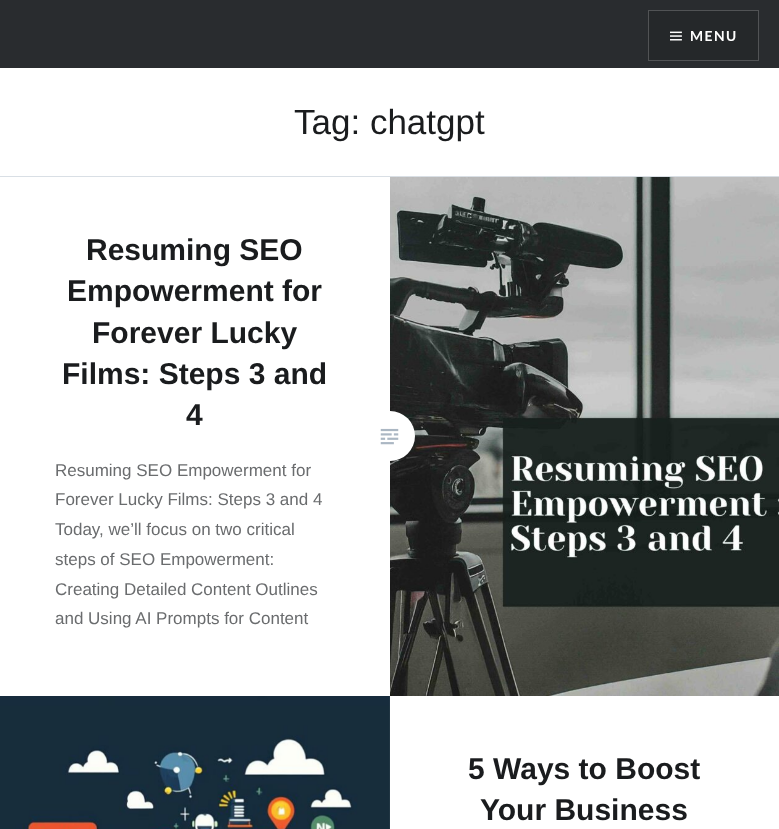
<?xml version="1.0" encoding="UTF-8"?>
<svg xmlns="http://www.w3.org/2000/svg" width="779" height="829">
    <rect width="100%" height="100%" fill="#FFFFFF"/>
    <rect x="0" y="0" width="779" height="68" fill="#292C2F"/>
    <rect x="648.5" y="10.5" width="110" height="50" fill="#25282A" stroke="#515355"/>
    <image x="670" y="31" width="12" height="10" href="img_01.png"/>
    <text x="690" y="41" font-family="Lato" font-size="14" font-weight="700" letter-spacing="1.5" fill="#FFFFFF">MENU</text>
    <rect x="0" y="176" width="779" height="1" fill="#D9DFE5"/>
    <text x="294" y="134" font-family="Liberation Sans" font-size="35" fill="#1A1C1E">Tag: chatgpt</text>
    <text x="86" y="260" font-family="Liberation Sans" font-size="30" font-weight="700" fill="#1A1C1E">Resuming SEO</text>
    <text x="67" y="301" font-family="Liberation Sans" font-size="30" font-weight="700" fill="#1A1C1E">Empowerment for</text>
    <text x="92" y="343" font-family="Liberation Sans" font-size="30" font-weight="700" fill="#1A1C1E">Forever Lucky</text>
    <text x="62" y="384" font-family="Liberation Sans" font-size="30" font-weight="700" fill="#1A1C1E">Films: Steps 3 and</text>
    <text x="186" y="425" font-family="Liberation Sans" font-size="30" font-weight="700" fill="#1A1C1E">4</text>
    <text font-family="Liberation Sans" font-size="17" fill="#6A6C6E">
        <tspan x="55" y="476">Resuming SEO Empowerment for</tspan>
        <tspan x="55" y="505">Forever Lucky Films: Steps 3 and 4</tspan>
        <tspan x="55" y="535">Today, we’ll focus on two critical</tspan>
        <tspan x="55" y="565">steps of SEO Empowerment:</tspan>
        <tspan x="55" y="595">Creating Detailed Content Outlines</tspan>
        <tspan x="55" y="624">and Using AI Prompts for Content</tspan>
    </text>
    <image x="390" y="177" width="389" height="519" href="img_03.png"/>
    <circle cx="390" cy="436" r="25" fill="#FFFFFF"/>
    <image x="380" y="428" width="19" height="17" href="img_02.png"/>
    <image x="0" y="696" width="390" height="133" href="img_04.png"/>
    <text x="468" y="779" font-family="Liberation Sans" font-size="30" font-weight="700" fill="#1A1C1E">5 Ways to Boost</text>
    <text x="480" y="820" font-family="Liberation Sans" font-size="30" font-weight="700" fill="#1A1C1E">Your Business</text>
</svg>
